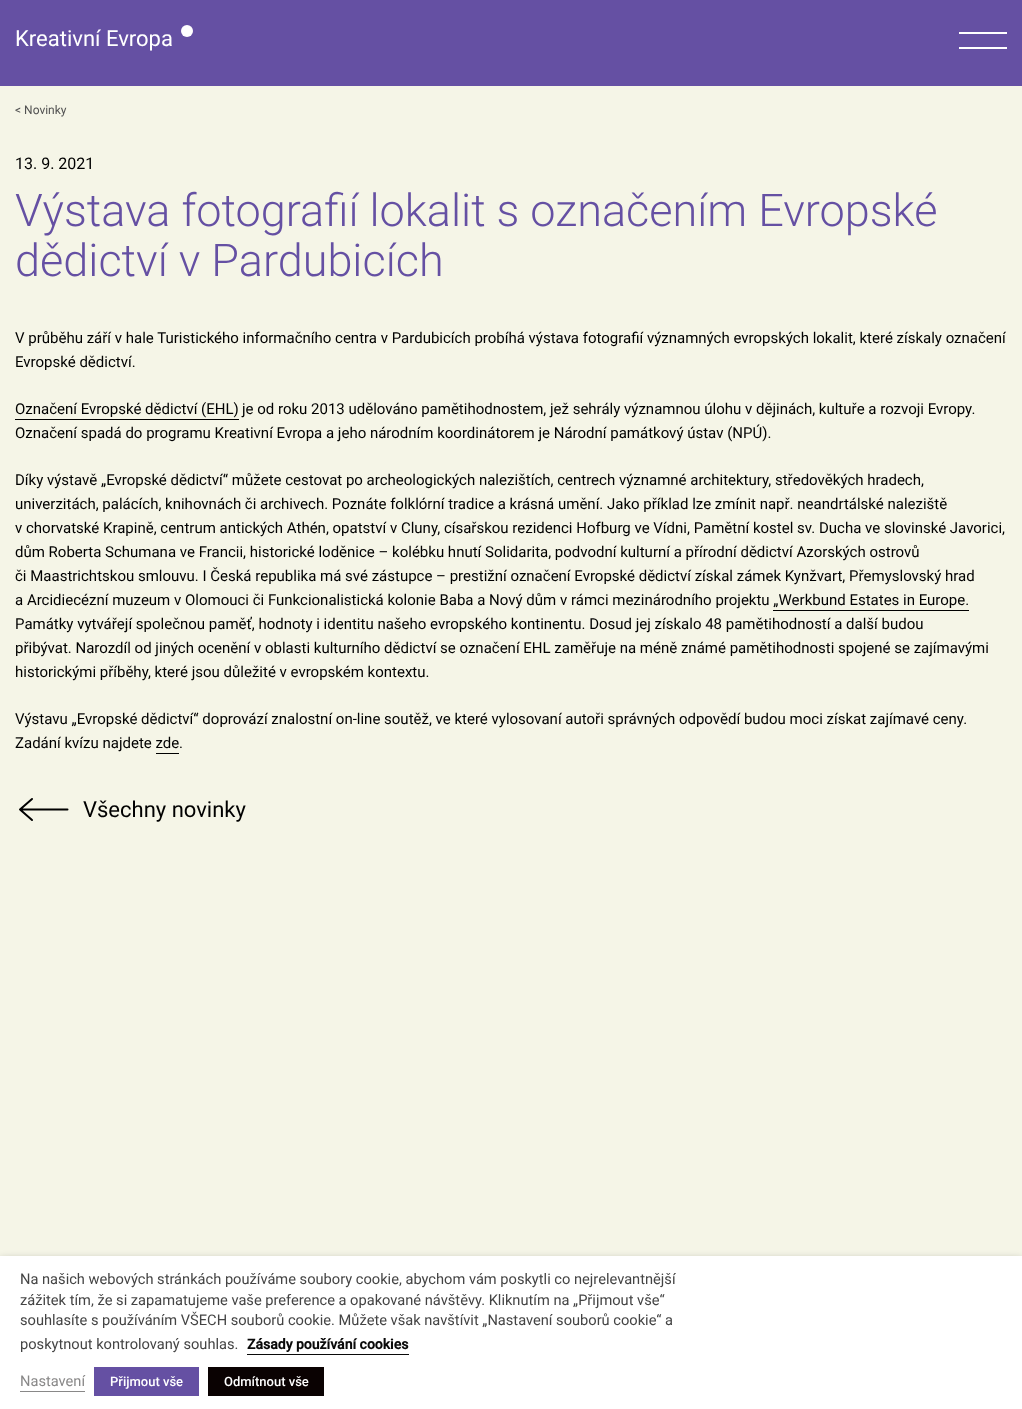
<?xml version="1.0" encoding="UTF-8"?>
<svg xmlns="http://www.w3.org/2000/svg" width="1022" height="1409">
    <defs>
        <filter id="blur1" x="-50%" y="-200%" width="200%" height="500%"><feGaussianBlur stdDeviation="5"/></filter>
    </defs>
    <rect width="100%" height="100%" fill="#F5F5E7"/>
    <rect x="0" y="0" width="1022" height="86" fill="#6550A3"/>
    <text x="15" y="46" font-family="Roboto" font-size="22" fill="#FFFFFF">Kreativní Evropa</text>
    <circle cx="187" cy="31" r="6" fill="#FFFFFF"/>
    <rect x="959" y="32" width="48" height="2" fill="#FFFFFF"/>
    <rect x="959" y="47" width="48" height="2" fill="#FFFFFF"/>
    <text x="15" y="114" font-family="Roboto" font-size="12" fill="#525252">&lt; Novinky</text>
    <text x="15" y="169" font-family="Roboto" font-size="16" fill="#000000">13. 9. 2021</text>
    <text font-family="Roboto" font-size="45" font-weight="300" fill="#6550A3">
        <tspan x="15" y="226">Výstava fotografií lokalit s označením Evropské</tspan>
        <tspan x="15" y="276">dědictví v Pardubicích</tspan>
    </text>
    <text font-family="Roboto" font-size="15" fill="#000000">
        <tspan x="15" y="343">V průběhu září v hale Turistického informačního centra v Pardubicích probíhá výstava fotografií významných evropských lokalit, které získaly označení</tspan>
        <tspan x="15" y="367">Evropské dědictví.</tspan>
    </text>
    <text x="15" y="414" font-family="Roboto" font-size="15" fill="#000000">Označení Evropské dědictví (EHL)</text>
    <rect x="15" y="419" width="224" height="1" fill="#000000"/>
    <text x="242" y="414" font-family="Roboto" font-size="15" fill="#000000">je od roku 2013 udělováno pamětihodnostem, jež sehrály významnou úlohu v dějinách, kultuře a rozvoji Evropy.</text>
    <text x="15" y="438" font-family="Roboto" font-size="15" fill="#000000">Označení spadá do programu Kreativní Evropa a jeho národním koordinátorem je Národní památkový ústav (NPÚ).</text>
    <text font-family="Roboto" font-size="15" fill="#000000">
        <tspan x="15" y="485">Díky výstavě „Evropské dědictví“ můžete cestovat po archeologických nalezištích, centrech významné architektury, středověkých hradech,</tspan>
        <tspan x="15" y="509">univerzitách, palácích, knihovnách či archivech. Poznáte folklórní tradice a krásná umění. Jako příklad lze zmínit např. neandrtálské naleziště</tspan>
        <tspan x="15" y="533">v chorvatské Krapině, centrum antických Athén, opatství v Cluny, císařskou rezidenci Hofburg ve Vídni, Pamětní kostel sv. Ducha ve slovinské Javorici,</tspan>
        <tspan x="15" y="557">dům Roberta Schumana ve Francii, historické loděnice – kolébku hnutí Solidarita, podvodní kulturní a přírodní dědictví Azorských ostrovů</tspan>
        <tspan x="15" y="581">či Maastrichtskou smlouvu. I Česká republika má své zástupce – prestižní označení Evropské dědictví získal zámek Kynžvart, Přemyslovský hrad</tspan>
        <tspan x="15" y="605">a Arcidiecézní muzeum v Olomouci či Funkcionalistická kolonie Baba a Nový dům v rámci mezinárodního projektu „Werkbund Estates in Europe.</tspan>
    </text>
    <rect x="773" y="610" width="196" height="1" fill="#000000"/>
    <text font-family="Roboto" font-size="15" fill="#000000">
        <tspan x="15" y="629">Památky vytvářejí společnou paměť, hodnoty i identitu našeho evropského kontinentu. Dosud jej získalo 48 pamětihodností a další budou</tspan>
        <tspan x="15" y="653">přibývat. Narozdíl od jiných ocenění v oblasti kulturního dědictví se označení EHL zaměřuje na méně známé pamětihodnosti spojené se zajímavými</tspan>
        <tspan x="15" y="677">historickými příběhy, které jsou důležité v evropském kontextu.</tspan>
    </text>
    <text font-family="Roboto" font-size="15" fill="#000000">
        <tspan x="15" y="724">Výstavu „Evropské dědictví“ doprovází znalostní on-line soutěž, ve které vylosovaní autoři správných odpovědí budou moci získat zajímavé ceny.</tspan>
        <tspan x="15" y="748">Zadání kvízu najdete zde</tspan>
    </text>
    <text x="179" y="748" font-family="Roboto" font-size="15" fill="#000000">.</text>
    <rect x="156" y="753" width="23" height="1" fill="#000000"/>
    <path d="M 20 809.5 H 67.5 M 32 820 L 20 809.5 L 32 799" fill="none" stroke="#000000" stroke-width="2" stroke-linecap="round" stroke-linejoin="round"/>
    <text x="83" y="817" font-family="Roboto" font-size="22" fill="#000000">Všechny novinky</text>
    <rect x="0" y="1261" width="1022" height="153" fill="#000000" fill-opacity="0.5" filter="url(#blur1)"/>
    <rect x="0" y="1256" width="1022" height="153" fill="#FFFFFF"/>
    <text font-family="Roboto" font-size="14.65" fill="#444444">
        <tspan x="20" y="1284">Na našich webových stránkách používáme soubory cookie, abychom vám poskytli co nejrelevantnější</tspan>
        <tspan x="20" y="1305">zážitek tím, že si zapamatujeme vaše preference a opakované návštěvy. Kliknutím na „Přijmout vše“</tspan>
        <tspan x="20" y="1325">souhlasíte s používáním VŠECH souborů cookie. Můžete však navštívit „Nastavení souborů cookie“ a</tspan>
        <tspan x="20" y="1349">poskytnout kontrolovaný souhlas.</tspan>
    </text>
    <text x="247" y="1349" font-family="Roboto" font-size="14" font-weight="700" fill="#0A0A0A">Zásady používání cookies</text>
    <rect x="247" y="1354" width="162" height="1" fill="#0A0A0A"/>
    <text x="20" y="1386" font-family="Roboto" font-size="14.65" fill="#898888">Nastavení</text>
    <rect x="20" y="1391" width="65" height="1" fill="#898888"/>
    <rect x="94" y="1367" width="105" height="29" fill="#6550A3"/>
    <text x="110" y="1386" font-family="Roboto" font-size="13" font-weight="500" fill="#FFFFFF">Přijmout vše</text>
    <rect x="208" y="1367" width="116" height="29" fill="#0A0202"/>
    <text x="224" y="1386" font-family="Roboto" font-size="13" font-weight="500" fill="#FFFFFF">Odmítnout vše</text>
</svg>
